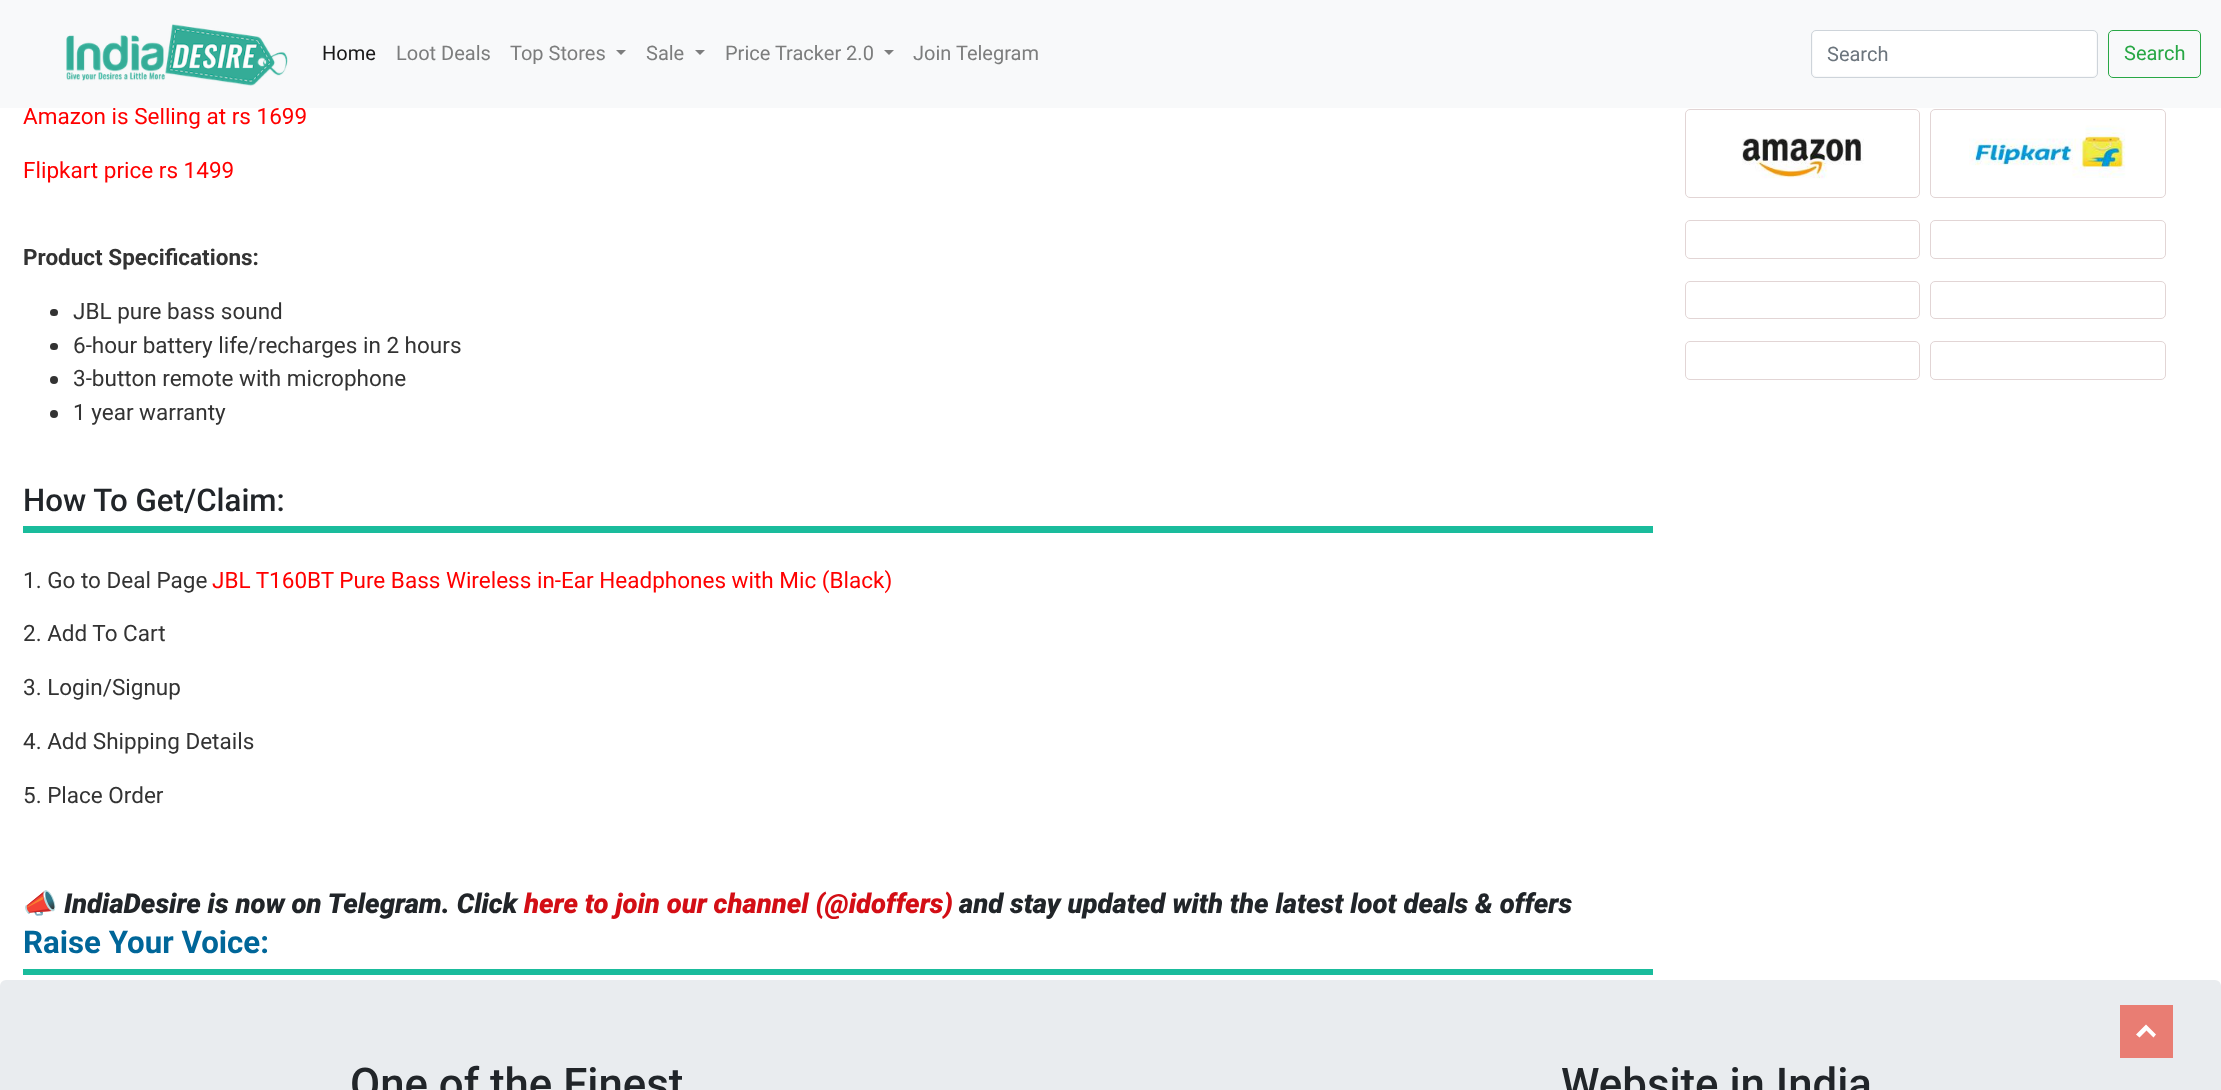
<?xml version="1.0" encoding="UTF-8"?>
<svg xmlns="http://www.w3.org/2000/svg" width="2221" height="1090">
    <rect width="100%" height="100%" fill="#FFFFFF"/>
    <text x="23" y="124" font-family="Roboto" font-size="22.5" fill="#FF0000">Amazon is Selling at rs 1699</text>
    <rect x="0" y="0" width="2221" height="108" fill="#F8F9FA"/>
    <image x="66" y="24" width="222" height="62" href="img_01.png"/>
    <text x="322" y="60" font-family="Roboto" font-size="20" fill="#191919">Home</text>
    <text x="396" y="60" font-family="Roboto" font-size="20" fill="#7C7D7D">Loot Deals</text>
    <text x="510" y="60" font-family="Roboto" font-size="20" fill="#7C7D7D">Top Stores</text>
    <path d="M 616 50 H 626 L 621 55 Z" fill="#7C7D7D"/>
    <text x="646" y="60" font-family="Roboto" font-size="20" fill="#7C7D7D">Sale</text>
    <path d="M 695 50 H 705 L 700 55 Z" fill="#7C7D7D"/>
    <text x="725" y="60" font-family="Roboto" font-size="20" fill="#7C7D7D">Price Tracker 2.0</text>
    <path d="M 884 50 H 894 L 889 55 Z" fill="#7C7D7D"/>
    <text x="913" y="60" font-family="Roboto" font-size="20" fill="#7C7D7D">Join Telegram</text>
    <rect x="1813" y="31" width="283" height="45" rx="4" fill="#FFFFFF"/>
    <rect x="1811.5" y="30.5" width="286" height="47" rx="4.5" fill="none" stroke="#CED4DA"/>
    <text x="1827" y="61" font-family="Roboto" font-size="20" fill="#6C757D">Search</text>
    <rect x="2108.5" y="30.5" width="92" height="47" rx="4.5" fill="none" stroke="#28A745"/>
    <text x="2124" y="60" font-family="Roboto" font-size="20" fill="#28A745">Search</text>
    <text x="23" y="178" font-family="Roboto" font-size="22.5" fill="#FF0000">Flipkart price rs 1499</text>
    <text x="23" y="265" font-family="Roboto" font-size="22.5" font-weight="700" fill="#333333">Product Specifications:</text>
    <rect x="50" y="309" width="8" height="7" rx="3.5" fill="#333333"/>
    <text x="73" y="319" font-family="Roboto" font-size="22.5" fill="#333333">JBL pure bass sound</text>
    <rect x="50" y="343" width="8" height="7" rx="3.5" fill="#333333"/>
    <text x="73" y="353" font-family="Roboto" font-size="22.5" fill="#333333">6-hour battery life/recharges in 2 hours</text>
    <circle cx="54" cy="380" r="4" fill="#333333"/>
    <text x="73" y="386" font-family="Roboto" font-size="22.5" fill="#333333">3-button remote with microphone</text>
    <circle cx="54" cy="414" r="4" fill="#333333"/>
    <text x="73" y="420" font-family="Roboto" font-size="22.5" fill="#333333">1 year warranty</text>
    <rect x="23" y="526" width="1630" height="7" fill="#1ABC9C"/>
    <text x="23" y="511" font-family="Roboto" font-size="31.25" font-weight="500" fill="#212529">How To Get/Claim:</text>
    <text x="23" y="588" font-family="Roboto" font-size="22.5" fill="#333333">1. Go to Deal Page</text>
    <text x="212" y="588" font-family="Roboto" font-size="22.5" fill="#FF0000">JBL T160BT Pure Bass Wireless in-Ear Headphones with Mic (Black)</text>
    <text x="23" y="641" font-family="Roboto" font-size="22.5" fill="#333333">2. Add To Cart</text>
    <text x="23" y="695" font-family="Roboto" font-size="22.5" fill="#333333">3. Login/Signup</text>
    <text x="23" y="749" font-family="Roboto" font-size="22.5" fill="#333333">4. Add Shipping Details</text>
    <text x="23" y="803" font-family="Roboto" font-size="22.5" fill="#333333">5. Place Order</text>
    <text x="23" y="913" font-family="Noto Color Emoji" font-size="27.5" font-weight="700" fill="#212529">📣</text>
    <text x="64" y="913" font-family="Roboto" font-size="27.5" font-weight="900" font-style="italic" fill="#212529">IndiaDesire is now on Telegram. Click</text>
    <text x="524" y="913" font-family="Roboto" font-size="27.5" font-weight="900" font-style="italic" fill="#D30E15">here to join our channel (@idoffers)</text>
    <text x="959" y="913" font-family="Roboto" font-size="27.5" font-weight="900" font-style="italic" fill="#212529">and stay updated with the latest loot deals &amp; offers</text>
    <rect x="23" y="969" width="1630" height="6" fill="#1ABC9C"/>
    <text x="23" y="953" font-family="Roboto" font-size="31.25" font-weight="700" fill="#006699">Raise Your Voice:</text>
    <rect x="1685.5" y="109.5" width="234" height="88" rx="4.5" fill="none" stroke="#E2D5D5"/>
    <image x="1742" y="138" width="122" height="41" href="img_02.png"/>
    <rect x="1930.5" y="109.5" width="235" height="88" rx="4.5" fill="none" stroke="#E2D5D5"/>
    <image x="1969" y="125" width="157" height="53" href="img_03.png"/>
    <rect x="1685.5" y="220.5" width="234" height="38" rx="4.5" fill="none" stroke="#E2D5D5"/>
    <rect x="1930.5" y="220.5" width="235" height="38" rx="4.5" fill="none" stroke="#E2D5D5"/>
    <rect x="1685.5" y="281.5" width="234" height="37" rx="4.5" fill="none" stroke="#E2D5D5"/>
    <rect x="1930.5" y="281.5" width="235" height="37" rx="4.5" fill="none" stroke="#E2D5D5"/>
    <rect x="1685.5" y="341.5" width="234" height="38" rx="4.5" fill="none" stroke="#E2D5D5"/>
    <rect x="1930.5" y="341.5" width="235" height="38" rx="4.5" fill="none" stroke="#E2D5D5"/>
    <rect x="0" y="980" width="2221" height="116" rx="6" fill="#E9ECEF"/>
    <rect x="2120" y="1005" width="53" height="53" fill="#E86154" fill-opacity="0.8"/>
    <path d="M 2146 1024.5 L 2156 1034.5 L 2153.5 1037.5 L 2146.5 1030.5 L 2139.5 1037.5 L 2136 1034.5 Z" fill="#FFFFFF"/>
    <text x="350" y="1099" font-family="Roboto" font-size="43.75" font-weight="500" fill="#212529">One of the Finest</text>
    <text x="1561" y="1099" font-family="Roboto" font-size="43.75" font-weight="500" fill="#212529">Website in India</text>
</svg>
